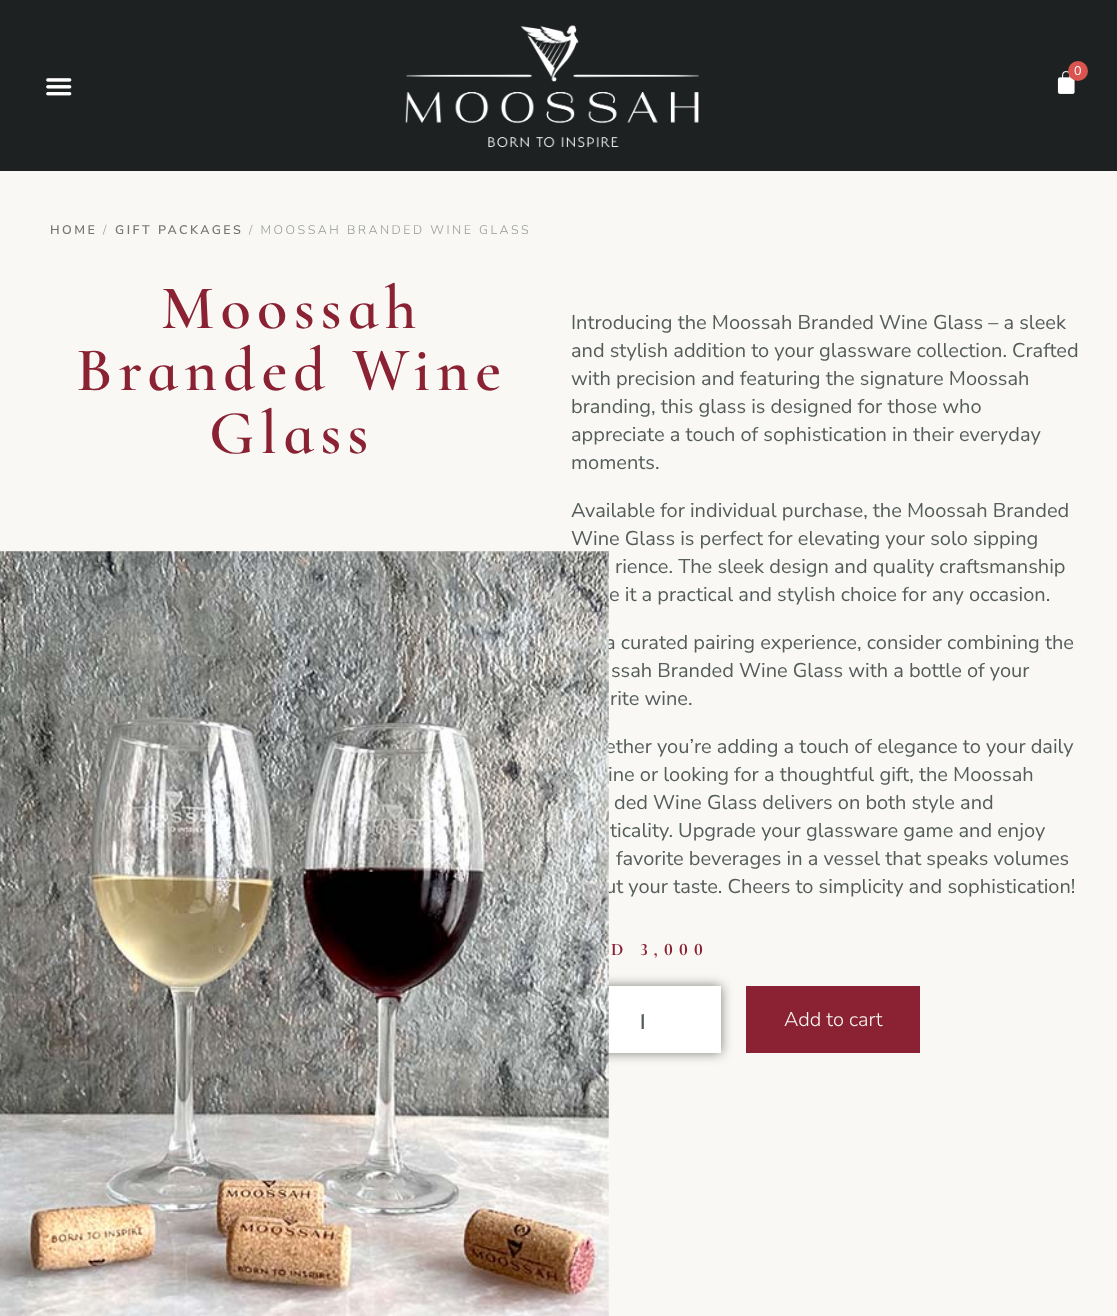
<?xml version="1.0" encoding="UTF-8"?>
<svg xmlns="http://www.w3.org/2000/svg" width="1117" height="1316">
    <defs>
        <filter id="blur1" x="-50%" y="-200%" width="200%" height="500%"><feGaussianBlur stdDeviation="6"/></filter>
    </defs>
    <rect width="100%" height="100%" fill="#F9F8F4"/>
    <rect x="0" y="0" width="1117" height="171" fill="#1E2121"/>
    <image x="405" y="25" width="294" height="123" href="img_01.png"/>
    <image x="1057" y="71" width="18" height="23" href="img_02.png"/>
    <circle cx="1078" cy="71" r="10" fill="#D9534F"/>
    <text x="1074" y="75" font-family="Nunito Sans" font-size="12.5" fill="#FFFFFF">0</text>
    <image x="46" y="78" width="26" height="18" href="img_03.png"/>
    <text x="50" y="234" font-family="Nunito Sans" font-size="12.5" font-weight="600" letter-spacing="2.5" fill="#767676">HOME</text>
    <text x="103" y="234" font-family="Nunito Sans" font-size="12.5" font-weight="300" letter-spacing="2.5" fill="#939896">/</text>
    <text x="115" y="234" font-family="Nunito Sans" font-size="12.5" font-weight="600" letter-spacing="2.5" fill="#767676">GIFT PACKAGES</text>
    <text x="249" y="234" font-family="Nunito Sans" font-size="12.5" font-weight="300" letter-spacing="2.5" fill="#939896">/ MOOSSAH BRANDED WINE GLASS</text>
    <text x="161" y="328" font-family="Cormorant Infant" font-size="62.5" font-weight="600" letter-spacing="6.25" fill="#8A2233">Moossah</text>
    <text x="76" y="390" font-family="Cormorant Infant" font-size="62.5" font-weight="600" letter-spacing="6.25" fill="#8A2233">Branded Wine</text>
    <text x="209" y="453" font-family="Cormorant Infant" font-size="62.5" font-weight="600" letter-spacing="6.25" fill="#8A2233">Glass</text>
    <text x="605" y="649" font-family="Nunito Sans" font-size="20" fill="#545D5C">a curated pairing experience, consider combining the</text>
    <text x="605" y="753" font-family="Nunito Sans" font-size="20" fill="#545D5C">ether you’re adding a touch of elegance to your daily</text>
    <text x="608" y="781" font-family="Nunito Sans" font-size="20" fill="#545D5C">ine or looking for a thoughtful gift, the Moossah</text>
    <text x="605" y="893" font-family="Nunito Sans" font-size="20" fill="#545D5C">ut your taste. Cheers to simplicity and sophistication!</text>
    <rect x="571" y="986" width="150" height="67" fill="#000000" fill-opacity="0.5" filter="url(#blur1)"/>
    <rect x="608" y="986" width="113" height="67" fill="#FFFFFF"/>
    <image x="0" y="551" width="609" height="765" href="img_04.png"/>
    <text font-family="Nunito Sans" font-size="20" fill="#545D5C">
        <tspan x="571" y="329">Introducing the Moossah Branded Wine Glass – a sleek</tspan>
        <tspan x="571" y="357">and stylish addition to your glassware collection. Crafted</tspan>
        <tspan x="571" y="385">with precision and featuring the signature Moossah</tspan>
        <tspan x="571" y="413">branding, this glass is designed for those who</tspan>
        <tspan x="571" y="441">appreciate a touch of sophistication in their everyday</tspan>
        <tspan x="571" y="469">moments.</tspan>
    </text>
    <text font-family="Nunito Sans" font-size="20" fill="#545D5C">
        <tspan x="571" y="517">Available for individual purchase, the Moossah Branded</tspan>
        <tspan x="571" y="545">Wine Glass is perfect for elevating your solo sipping</tspan>
    </text>
    <text x="615" y="573" font-family="Nunito Sans" font-size="20" fill="#545D5C">rience. The sleek design and quality craftsmanship</text>
    <text x="609" y="601" font-family="Nunito Sans" font-size="20" fill="#545D5C">e it a practical and stylish choice for any occasion.</text>
    <text x="611" y="677" font-family="Nunito Sans" font-size="20" fill="#545D5C">ssah Branded Wine Glass with a bottle of your</text>
    <text x="610" y="705" font-family="Nunito Sans" font-size="20" fill="#545D5C">rite wine.</text>
    <text x="614" y="809" font-family="Nunito Sans" font-size="20" fill="#545D5C">ded Wine Glass delivers on both style and</text>
    <text x="610" y="837" font-family="Nunito Sans" font-size="20" fill="#545D5C">ticality. Upgrade your glassware game and enjoy</text>
    <text x="616" y="865" font-family="Nunito Sans" font-size="20" fill="#545D5C">favorite beverages in a vessel that speaks volumes</text>
    <text x="611" y="955" font-family="Cormorant Infant" font-size="17.5" font-weight="700" letter-spacing="6.25" fill="#8A2233">D 3,000</text>
    <text x="639" y="1029" font-family="Alata" font-size="20" fill="#545D5C">1</text>
    <rect x="746" y="986" width="174" height="67" fill="#8A2233"/>
    <text x="784" y="1026" font-family="Nunito Sans" font-size="20" font-weight="300" fill="#F9F8F4">Add to cart</text>
</svg>
